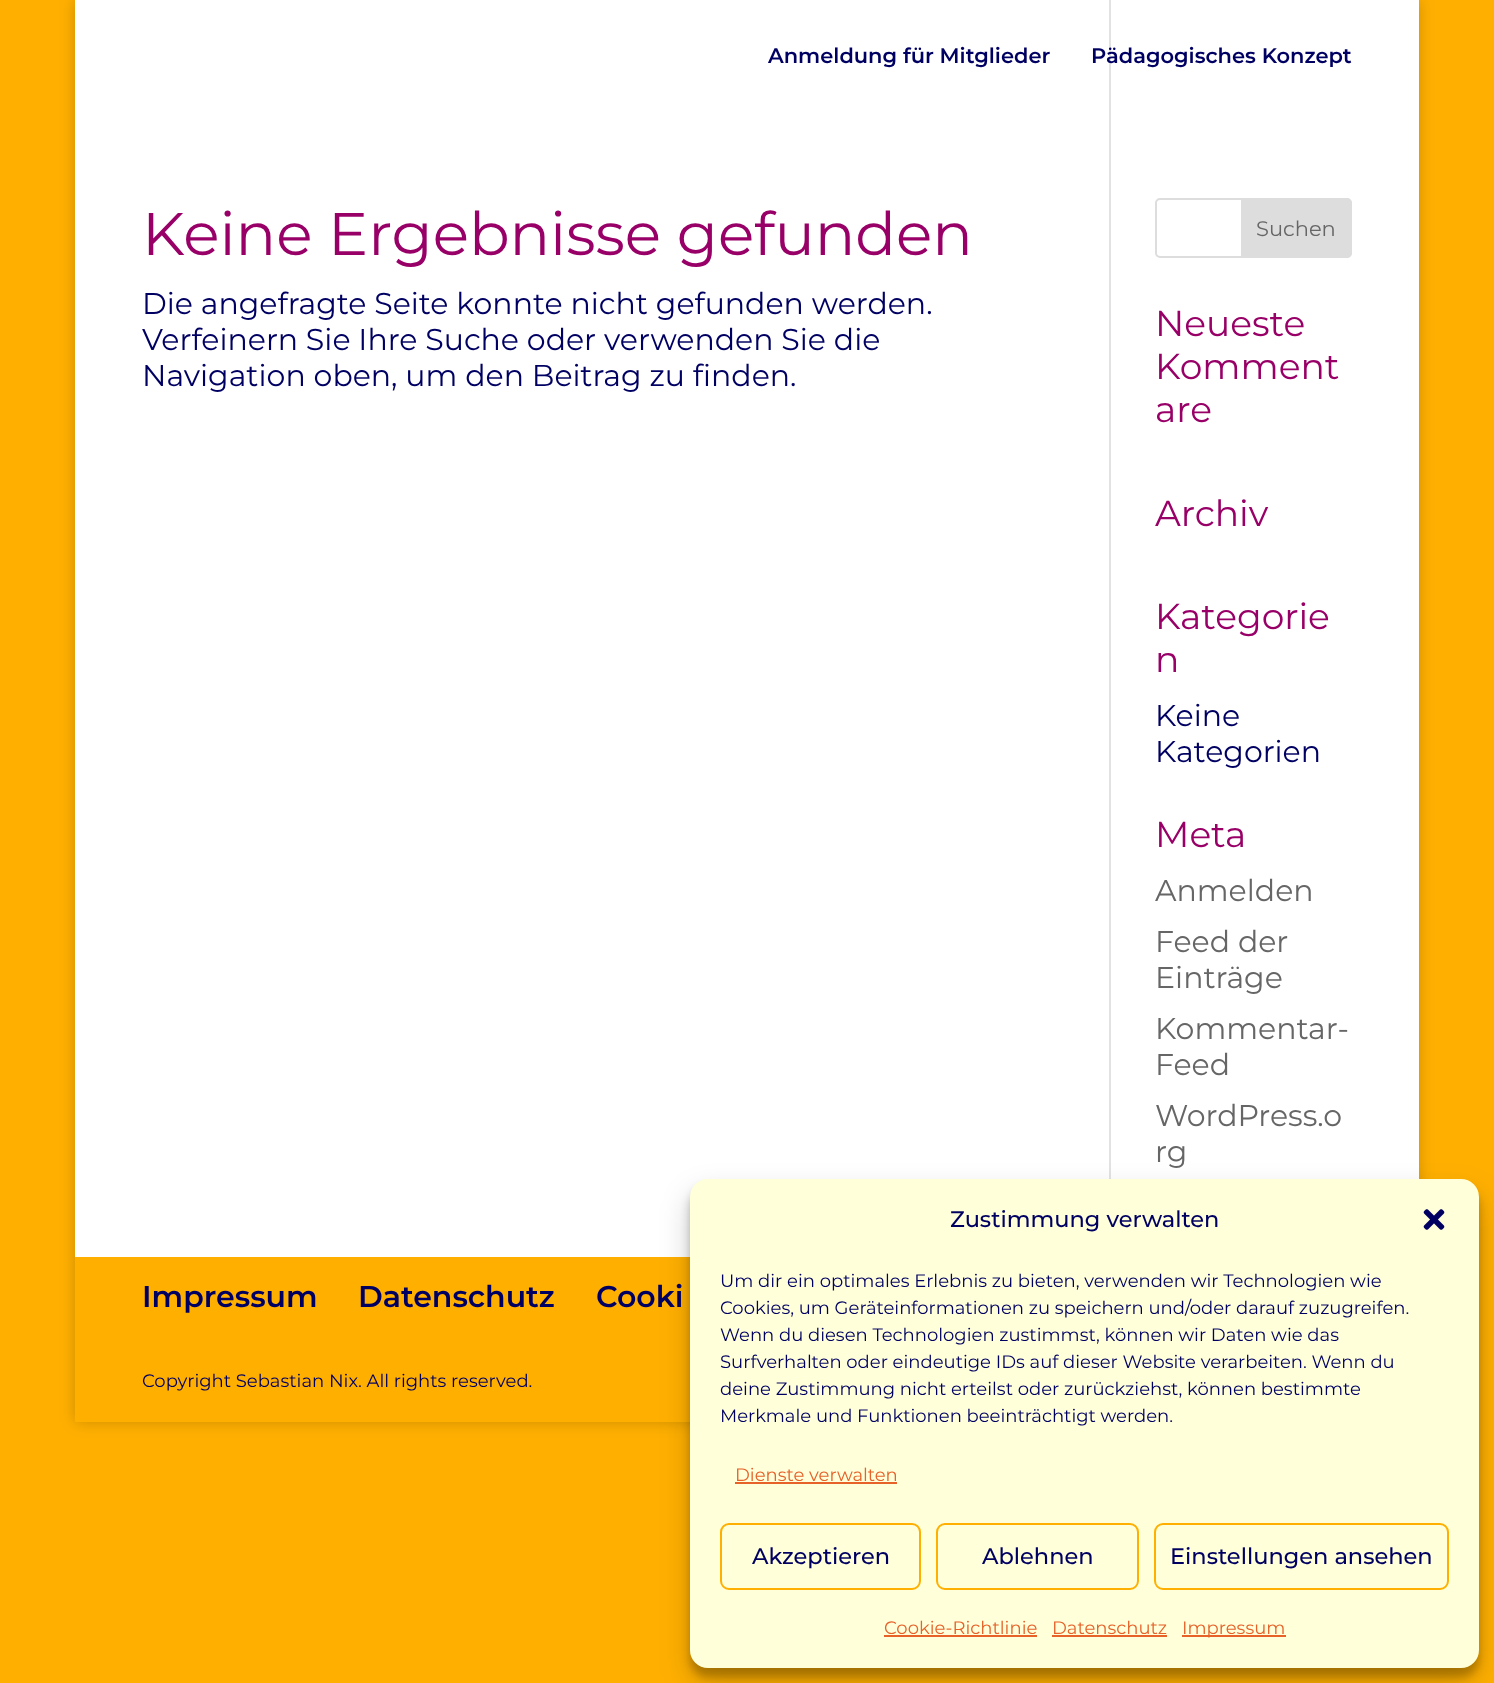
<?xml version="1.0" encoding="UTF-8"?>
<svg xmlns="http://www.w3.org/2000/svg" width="1494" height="1683">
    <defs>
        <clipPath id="clip1"><path d="M 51 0 H 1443 V 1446 H 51 Z M 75 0 H 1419 V 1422 H 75 Z" clip-rule="evenodd"/></clipPath>
        <filter id="blur1" x="-50%" y="-200%" width="200%" height="500%"><feGaussianBlur stdDeviation="7.5"/></filter>
        <filter id="blur2" x="-50%" y="-200%" width="200%" height="500%"><feGaussianBlur stdDeviation="4.5"/></filter>
        <filter id="blur3" x="-50%" y="-200%" width="200%" height="500%"><feGaussianBlur stdDeviation="15"/></filter>
    </defs>
    <rect width="100%" height="100%" fill="#FFAF00"/>
    <g clip-path="url(#clip1)">
        <rect x="75" y="0" width="1344" height="1422" fill="#000000" fill-opacity="0.2" filter="url(#blur1)"/>
    </g>
    <rect x="75" y="0" width="1344" height="1257" fill="#FFFFFF"/>
    <text x="768" y="63" font-family="Montserrat" font-size="21" font-weight="600" fill="#000062">Anmeldung für Mitglieder</text>
    <rect x="1109" y="0" width="2" height="1179" fill="#E2E2E2"/>
    <text x="1091" y="63" font-family="Montserrat" font-size="21" font-weight="600" fill="#000062">Pädagogisches Konzept</text>
    <text x="142" y="255" font-family="Montserrat" font-size="60" fill="#980068">Keine Ergebnisse gefunden</text>
    <text font-family="Montserrat" font-size="30" fill="#000062">
        <tspan x="142" y="314">Die angefragte Seite konnte nicht gefunden werden.</tspan>
        <tspan x="142" y="350">Verfeinern Sie Ihre Suche oder verwenden Sie die</tspan>
        <tspan x="142" y="386">Navigation oben, um den Beitrag zu finden.</tspan>
    </text>
    <rect x="1156" y="199" width="195" height="58" rx="4" fill="none" stroke="#DDDDDD" stroke-width="2"/>
    <path d="M 1242 199 H 1347 C 1349 199 1351 201 1351 203 V 253 C 1351 255 1349 257 1347 257 H 1242 Z" fill="#DDDDDD" stroke="#DDDDDD" stroke-width="2"/>
    <text x="1256" y="236" font-family="Montserrat" font-size="21" fill="#666666">Suchen</text>
    <text font-family="Montserrat" font-size="36" fill="#980068">
        <tspan x="1155" y="336">Neueste</tspan>
        <tspan x="1155" y="379">Komment</tspan>
        <tspan x="1155" y="422">are</tspan>
    </text>
    <text x="1155" y="526" font-family="Montserrat" font-size="36" fill="#980068">Archiv</text>
    <text font-family="Montserrat" font-size="36" fill="#980068">
        <tspan x="1155" y="629">Kategorie</tspan>
        <tspan x="1155" y="672">n</tspan>
    </text>
    <text font-family="Montserrat" font-size="30" fill="#000062">
        <tspan x="1155" y="726">Keine</tspan>
        <tspan x="1155" y="762">Kategorien</tspan>
    </text>
    <text x="1155" y="847" font-family="Montserrat" font-size="36" fill="#980068">Meta</text>
    <text font-family="Montserrat" font-size="30" fill="#666666">
        <tspan x="1155" y="901">Anmelden</tspan>
        <tspan x="1155" y="952">Feed der</tspan>
        <tspan x="1155" y="988">Einträge</tspan>
        <tspan x="1155" y="1039">Kommentar-</tspan>
        <tspan x="1155" y="1075">Feed</tspan>
        <tspan x="1155" y="1126">WordPress.o</tspan>
        <tspan x="1155" y="1162">rg</tspan>
    </text>
    <text x="142" y="1307" font-family="Montserrat" font-size="30" font-weight="600" fill="#000062">Impressum</text>
    <text x="358" y="1307" font-family="Montserrat" font-size="30" font-weight="600" fill="#000062">Datenschutz</text>
    <text x="596" y="1307" font-family="Montserrat" font-size="30" font-weight="600" fill="#000062">Cooki</text>
    <text x="142" y="1387" font-family="Montserrat" font-size="18" fill="#000062">Copyright Sebastian Nix. All rights reserved.</text>
    <rect x="690" y="1188" width="789" height="489" rx="18" fill="#000000" fill-opacity="0.23" filter="url(#blur2)"/>
    <rect x="690" y="1194" width="789" height="489" rx="18" fill="#000000" fill-opacity="0.19" filter="url(#blur3)"/>
    <rect x="690" y="1179" width="789" height="489" rx="18" fill="#FFFFDA"/>
    <text x="950" y="1227" font-family="Montserrat" font-size="22.5" font-weight="500" fill="#000062">Zustimmung verwalten</text>
    <image x="1423" y="1209" width="22" height="21" href="img_01.png"/>
    <text font-family="Montserrat" font-size="18" fill="#000062">
        <tspan x="720" y="1287">Um dir ein optimales Erlebnis zu bieten, verwenden wir Technologien wie</tspan>
        <tspan x="720" y="1314">Cookies, um Geräteinformationen zu speichern und/oder darauf zuzugreifen.</tspan>
        <tspan x="720" y="1341">Wenn du diesen Technologien zustimmst, können wir Daten wie das</tspan>
        <tspan x="720" y="1368">Surfverhalten oder eindeutige IDs auf dieser Website verarbeiten. Wenn du</tspan>
        <tspan x="720" y="1395">deine Zustimmung nicht erteilst oder zurückziehst, können bestimmte</tspan>
        <tspan x="720" y="1422">Merkmale und Funktionen beeinträchtigt werden.</tspan>
    </text>
    <text x="735" y="1481" font-family="Montserrat" font-size="18" fill="#E66229">Dienste verwalten</text>
    <rect x="735" y="1482" width="162" height="2" fill="#E66229"/>
    <rect x="721" y="1524" width="199" height="65" rx="8" fill="none" stroke="#FFAF00" stroke-width="2"/>
    <text x="752" y="1564" font-family="Montserrat" font-size="22.5" font-weight="500" fill="#000062">Akzeptieren</text>
    <rect x="937" y="1524" width="201" height="65" rx="8" fill="none" stroke="#FFAF00" stroke-width="2"/>
    <text x="982" y="1564" font-family="Montserrat" font-size="22.5" font-weight="500" fill="#000062">Ablehnen</text>
    <rect x="1155" y="1524" width="293" height="65" rx="8" fill="none" stroke="#FFAF00" stroke-width="2"/>
    <text x="1170" y="1564" font-family="Montserrat" font-size="22.5" font-weight="500" fill="#000062">Einstellungen ansehen</text>
    <text x="884" y="1634" font-family="Montserrat" font-size="18" fill="#E66229">Cookie-Richtlinie</text>
    <rect x="884" y="1635" width="153" height="2" fill="#E66229"/>
    <text x="1052" y="1634" font-family="Montserrat" font-size="18" fill="#E66229">Datenschutz</text>
    <rect x="1052" y="1635" width="115" height="2" fill="#E66229"/>
    <rect x="1182" y="1635" width="104" height="2" fill="#E66229"/>
    <text x="1182" y="1634" font-family="Montserrat" font-size="18" fill="#E66229">Impressum</text>
</svg>
